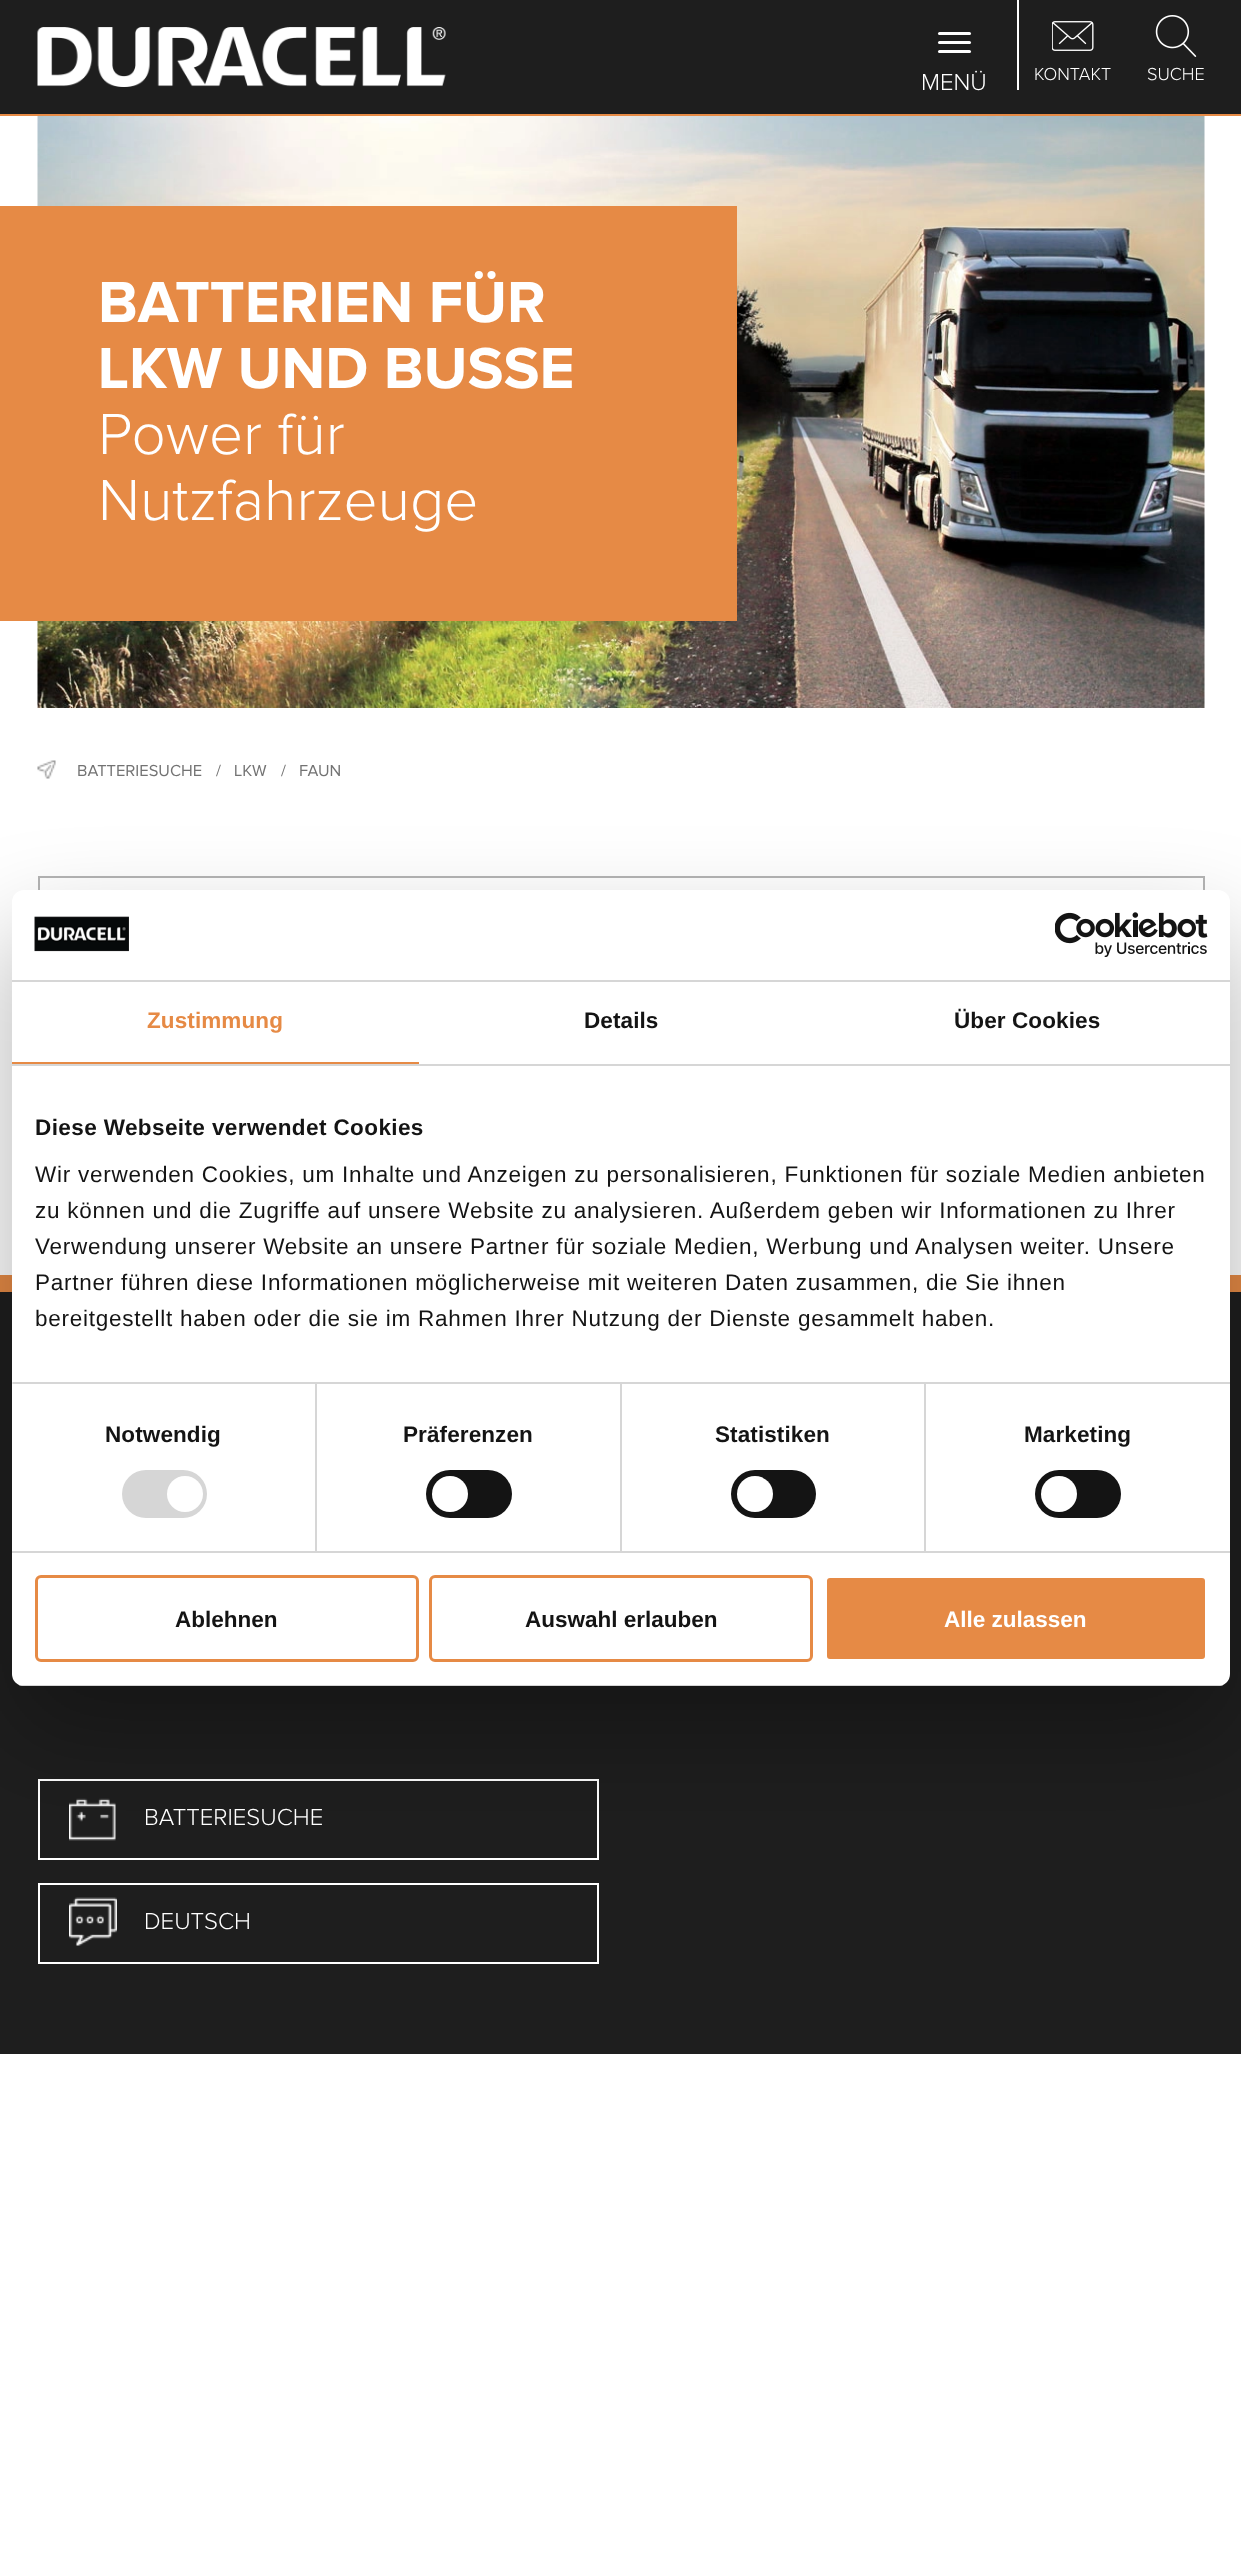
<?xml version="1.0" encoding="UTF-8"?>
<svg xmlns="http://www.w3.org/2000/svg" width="1241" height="2575">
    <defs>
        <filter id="blur1" x="-50%" y="-200%" width="200%" height="500%"><feGaussianBlur stdDeviation="51"/></filter>
        <clipPath id="clip1"><rect x="12" y="890" width="1218" height="796" rx="12"/></clipPath>
    </defs>
    <rect width="100%" height="100%" fill="#FFFFFF"/>
    <rect x="0" y="0" width="1241" height="114" fill="#1E1E1E"/>
    <rect x="0" y="114" width="1241" height="2" fill="#E68A45"/>
    <image x="37" y="27" width="409" height="60" href="img_01.png"/>
    <rect x="938" y="32" width="33" height="3" rx="1.5" fill="#FFFFFF"/>
    <rect x="938" y="41" width="33" height="3" rx="1.5" fill="#FFFFFF"/>
    <rect x="938" y="50" width="33" height="3" rx="1.5" fill="#FFFFFF"/>
    <text x="921" y="90" font-family="Proxima Nova" font-size="24" font-weight="300" fill="#FFFFFF">MENÜ</text>
    <rect x="1017" y="0" width="2" height="90" fill="#FFFFFF"/>
    <image x="1052" y="21" width="42" height="30" href="img_02.png"/>
    <text x="1034" y="80" font-family="Proxima Nova" font-size="18" font-weight="300" fill="#FFFFFF">KONTAKT</text>
    <image x="1155" y="15" width="42" height="42" href="img_03.png"/>
    <text x="1147" y="80" font-family="Proxima Nova" font-size="18" font-weight="300" fill="#FFFFFF">SUCHE</text>
    <image x="37" y="116" width="1168" height="592" href="img_04.png"/>
    <rect x="0" y="206" width="737" height="415" fill="#E68A45"/>
    <text font-family="Proxima Nova" font-size="60" font-weight="700" fill="#FFFFFF">
        <tspan x="98" y="322">BATTERIEN FÜR</tspan>
        <tspan x="98" y="388">LKW UND BUSSE</tspan>
    </text>
    <text font-family="Proxima Nova" font-size="60" font-weight="300" fill="#FFFFFF">
        <tspan x="98" y="454">Power für</tspan>
        <tspan x="98" y="520">Nutzfahrzeuge</tspan>
    </text>
    <image x="37" y="760" width="19" height="19" href="img_05.png"/>
    <text x="77" y="776" font-family="Proxima Nova" font-size="16.5" fill="#737373">BATTERIESUCHE</text>
    <text x="216" y="776" font-family="Proxima Nova" font-size="16.5" fill="#737373">/</text>
    <text x="234" y="776" font-family="Proxima Nova" font-size="16.5" fill="#737373">LKW</text>
    <text x="281" y="776" font-family="Proxima Nova" font-size="16.5" fill="#737373">/</text>
    <text x="299" y="776" font-family="Proxima Nova" font-size="16.5" fill="#737373">FAUN</text>
    <rect x="39" y="877" width="1165" height="84" fill="none" stroke="#B4B4B4" stroke-width="2"/>
    <rect x="0" y="1292" width="1241" height="762" fill="#1E1E1E"/>
    <rect x="0" y="1275" width="1241" height="17" fill="#E68A45"/>
    <image x="69" y="1798" width="47" height="43" href="img_08.png"/>
    <rect x="39" y="1780" width="559" height="79" fill="none" stroke="#FFFFFF" stroke-width="2"/>
    <image x="69" y="1897" width="48" height="49" href="img_09.png"/>
    <rect x="39" y="1884" width="559" height="79" fill="none" stroke="#FFFFFF" stroke-width="2"/>
    <rect x="12" y="938" width="1218" height="796" rx="12" fill="#000000" fill-opacity="0.3" filter="url(#blur1)"/>
    <rect x="12" y="890" width="1218" height="796" rx="12" fill="#FFFFFF"/>
    <rect x="12" y="980" width="1218" height="2" fill="#D6D6D6"/>
    <image x="34" y="916" width="95" height="36" href="img_06.png"/>
    <image x="1055" y="912" width="153" height="45" href="img_07.png"/>
    <rect x="12" y="1064" width="1218" height="2" fill="#D6D6D6"/>
    <rect x="12" y="1062" width="407" height="2" fill="#E68A45"/>
    <text x="147" y="1028" font-family="Liberation Sans" font-size="22.5" font-weight="700" letter-spacing="0.1" fill="#E68A45">Zustimmung</text>
    <text x="584" y="1028" font-family="Liberation Sans" font-size="22.5" font-weight="700" letter-spacing="0.1" fill="#141414">Details</text>
    <text x="954" y="1028" font-family="Liberation Sans" font-size="22.5" font-weight="700" letter-spacing="0.1" fill="#141414">Über Cookies</text>
    <rect x="315" y="1383" width="2" height="168" fill="#D6D6D6"/>
    <rect x="620" y="1383" width="2" height="168" fill="#D6D6D6"/>
    <rect x="924" y="1383" width="2" height="168" fill="#D6D6D6"/>
    <rect x="12" y="1382" width="1218" height="2" fill="#D6D6D6"/>
    <text x="35" y="1135" font-family="Liberation Sans" font-size="22.5" font-weight="700" letter-spacing="0.4" fill="#141414">Diese Webseite verwendet Cookies</text>
    <text font-family="Liberation Sans" font-size="22.5" letter-spacing="0.75" fill="#141414">
        <tspan x="35" y="1182">Wir verwenden Cookies, um Inhalte und Anzeigen zu personalisieren, Funktionen für soziale Medien anbieten</tspan>
        <tspan x="35" y="1218">zu können und die Zugriffe auf unsere Website zu analysieren. Außerdem geben wir Informationen zu Ihrer</tspan>
        <tspan x="35" y="1254">Verwendung unserer Website an unsere Partner für soziale Medien, Werbung und Analysen weiter. Unsere</tspan>
        <tspan x="35" y="1290">Partner führen diese Informationen möglicherweise mit weiteren Daten zusammen, die Sie ihnen</tspan>
        <tspan x="35" y="1326">bereitgestellt haben oder die sie im Rahmen Ihrer Nutzung der Dienste gesammelt haben.</tspan>
    </text>
    <rect x="12" y="1551" width="1218" height="2" fill="#D6D6D6"/>
    <rect x="12" y="1382" width="1" height="2" fill="#E5E5E5"/>
    <text x="105" y="1442" font-family="Liberation Sans" font-size="22.5" font-weight="700" letter-spacing="0.1" fill="#141414">Notwendig</text>
    <rect x="122" y="1470" width="85" height="48" rx="24" fill="#D6D6D6"/>
    <circle cx="185" cy="1494" r="18" fill="#FFFFFF"/>
    <text x="403" y="1442" font-family="Liberation Sans" font-size="22.5" font-weight="700" letter-spacing="0.1" fill="#141414">Präferenzen</text>
    <rect x="426" y="1470" width="86" height="48" rx="24" fill="#141414"/>
    <circle cx="450" cy="1494" r="18" fill="#FFFFFF"/>
    <text x="715" y="1442" font-family="Liberation Sans" font-size="22.5" font-weight="700" letter-spacing="0.1" fill="#141414">Statistiken</text>
    <rect x="731" y="1470" width="85" height="48" rx="24" fill="#141414"/>
    <circle cx="755" cy="1494" r="18" fill="#FFFFFF"/>
    <text x="1024" y="1442" font-family="Liberation Sans" font-size="22.5" font-weight="700" letter-spacing="0.1" fill="#141414">Marketing</text>
    <rect x="1035" y="1470" width="86" height="48" rx="24" fill="#141414"/>
    <circle cx="1059" cy="1494" r="18" fill="#FFFFFF"/>
    <g clip-path="url(#clip1)">
        <rect x="12" y="1685" width="1218" height="1" fill="#D6D6D6"/>
    </g>
    <rect x="36.5" y="1576.5" width="381" height="84" rx="4.5" fill="none" stroke="#E68A45" stroke-width="3"/>
    <text x="175" y="1627" font-family="Liberation Sans" font-size="22.5" font-weight="700" fill="#141414">Ablehnen</text>
    <rect x="430.5" y="1576.5" width="381" height="84" rx="4.5" fill="none" stroke="#E68A45" stroke-width="3"/>
    <text x="525" y="1627" font-family="Liberation Sans" font-size="22.5" font-weight="700" fill="#141414">Auswahl erlauben</text>
    <rect x="825.5" y="1576.5" width="381" height="84" rx="4.5" fill="#E68A45" stroke="#FFFFFF" stroke-width="3"/>
    <text x="944" y="1627" font-family="Liberation Sans" font-size="22.5" font-weight="700" fill="#FFFFFF">Alle zulassen</text>
    <text x="144" y="1825" font-family="Proxima Nova" font-size="24" font-weight="300" fill="#FFFFFF">BATTERIESUCHE</text>
    <text x="144" y="1929" font-family="Proxima Nova" font-size="24" font-weight="300" fill="#FFFFFF">DEUTSCH</text>
</svg>
